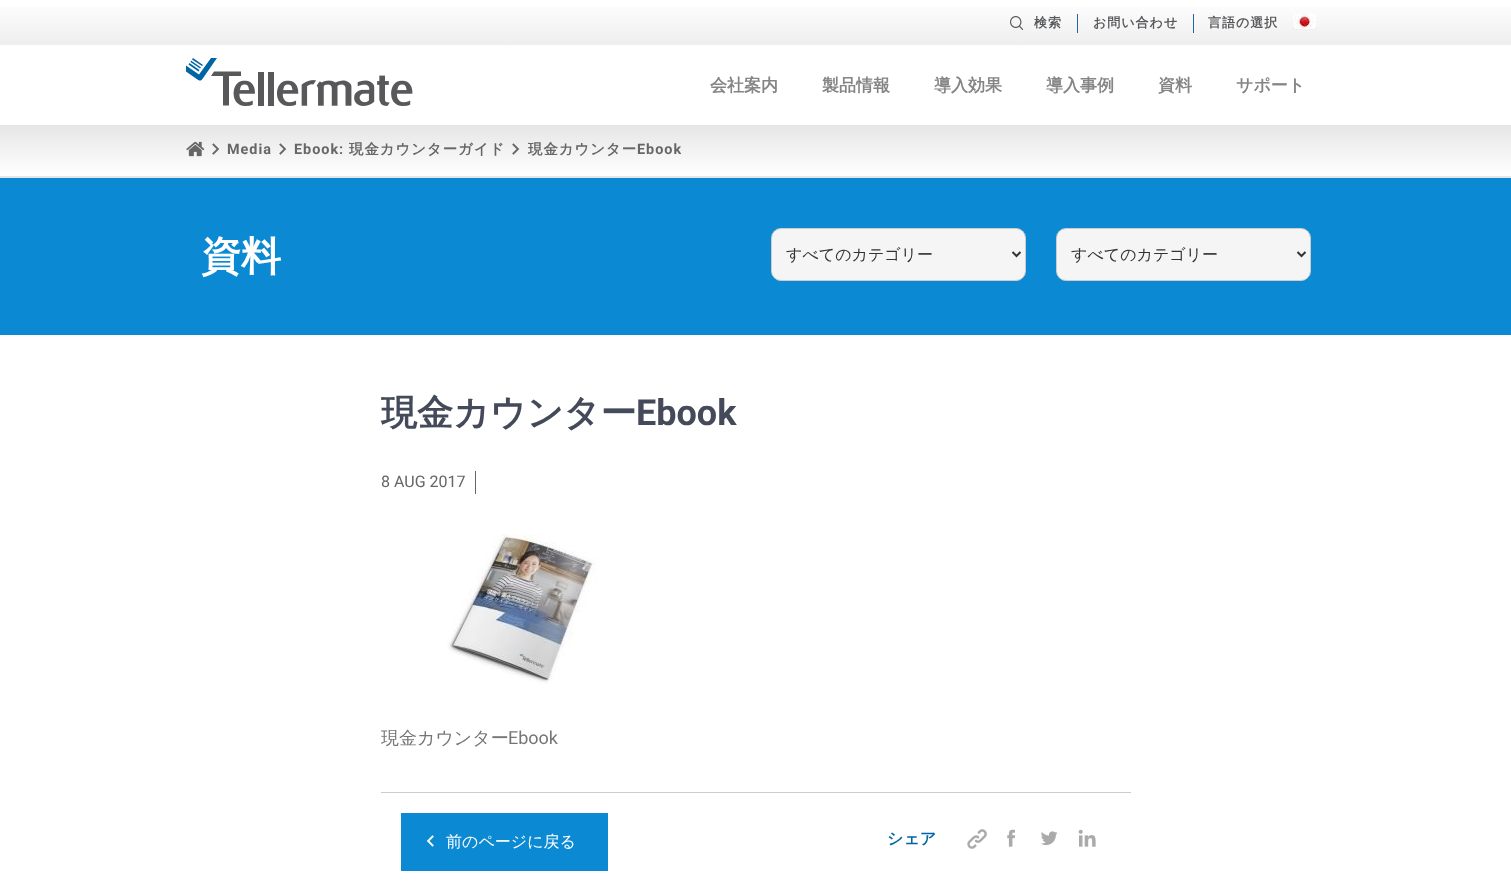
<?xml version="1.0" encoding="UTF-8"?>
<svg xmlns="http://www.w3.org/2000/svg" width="1511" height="885">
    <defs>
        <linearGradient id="g1" gradientUnits="userSpaceOnUse" x1="756" y1="0" x2="756" y2="45"><stop offset="0" stop-color="#FFFFFF"/><stop offset="1" stop-color="#EEEEEE"/></linearGradient>
        <linearGradient id="g2" gradientUnits="userSpaceOnUse" x1="756" y1="125" x2="756" y2="176"><stop offset="0" stop-color="#E6E6E6"/><stop offset="1" stop-color="#FFFFFF"/></linearGradient>
        <linearGradient id="g3" gradientUnits="userSpaceOnUse" x1="756" y1="176" x2="756" y2="227"><stop offset="0" stop-color="#E6E6E6"/><stop offset="1" stop-color="#FFFFFF"/></linearGradient>
    </defs>
    <rect width="100%" height="100%" fill="#FFFFFF"/>
    <rect x="0" y="7" width="1511" height="38" fill="url(#g1)"/>
    <image x="1010" y="16" width="14" height="14" href="img_01.png"/>
    <text x="1034" y="27" font-family="WenQuanYi Zen Hei" font-size="13" font-weight="700" letter-spacing="1" fill="#57585B">検索</text>
    <rect x="1193" y="14" width="1" height="19" fill="#2262A7"/>
    <rect x="1077" y="14" width="1" height="19" fill="#2262A7"/>
    <text x="1093" y="27" font-family="WenQuanYi Zen Hei" font-size="13" font-weight="700" letter-spacing="1" fill="#57585B">お問い合わせ</text>
    <text x="1208" y="27" font-family="WenQuanYi Zen Hei" font-size="13" font-weight="700" letter-spacing="1" fill="#57585B">言語の選択</text>
    <image x="1293" y="13" width="23" height="17" href="img_02.png"/>
    <path d="M 211 58 L 199 74.5 L 186 65.5 V 71.5 L 196 78.5 C 201 82 201 81 204.5 76 L 217 58 Z" fill="#0065A3"/>
    <path d="M 188.5 64.5 L 189.5 63 L 199.5 70 L 198.5 71.5 Z" fill="#0065A3"/>
    <path d="M 190.5 62 L 191 60.5 L 201 67.5 L 200 68.5 Z" fill="#0065A3"/>
    <path d="M 192 59.5 L 193 58 L 203 65 L 202 66 Z" fill="#0065A3"/>
    <path d="M 241 71.5 H 214 L 211 76 H 223 V 105.5 H 229 V 76 H 241 Z" fill="#58585B"/>
    <image x="233" y="80" width="22" height="26" href="img_03.png"/>
    <rect x="258" y="72" width="6" height="34" fill="#58585B"/>
    <rect x="268" y="72" width="6" height="34" fill="#58585B"/>
    <image x="276" y="80" width="23" height="26" href="img_04.png"/>
    <image x="316" y="80" width="36" height="26" href="img_06.png"/>
    <image x="301" y="80" width="16" height="26" href="img_05.png"/>
    <image x="354" y="80" width="21" height="26" href="img_07.png"/>
    <image x="377" y="75" width="13" height="31" href="img_08.png"/>
    <image x="391" y="80" width="22" height="26" href="img_09.png"/>
    <text x="710" y="91" font-family="WenQuanYi Zen Hei" font-size="17" font-weight="700" fill="#858585">会社案内</text>
    <text x="822" y="91" font-family="WenQuanYi Zen Hei" font-size="17" font-weight="700" fill="#858585">製品情報</text>
    <text x="934" y="91" font-family="WenQuanYi Zen Hei" font-size="17" font-weight="700" fill="#858585">導入効果</text>
    <text x="1046" y="91" font-family="WenQuanYi Zen Hei" font-size="17" font-weight="700" fill="#858585">導入事例</text>
    <text x="1158" y="91" font-family="WenQuanYi Zen Hei" font-size="17" font-weight="700" fill="#858585">資料</text>
    <text x="1236" y="91" font-family="WenQuanYi Zen Hei" font-size="17" font-weight="700" fill="#858585">サポート</text>
    <rect x="0" y="125" width="1511" height="46" fill="url(#g2)"/>
    <rect x="0" y="176" width="1511" height="2" fill="url(#g3)"/>
    <image x="186" y="141" width="19" height="16" href="img_10.png"/>
    <image x="212" y="143" width="8" height="12" href="img_11.png"/>
    <text x="227" y="154" font-family="Roboto" font-size="14.4" font-weight="700" letter-spacing="1" fill="#666666">Media</text>
    <image x="279" y="143" width="8" height="12" href="img_11.png"/>
    <text x="294" y="154" font-family="Roboto" font-size="14.4" font-weight="700" letter-spacing="1" fill="#666666">Ebook:</text>
    <text x="349" y="154" font-family="WenQuanYi Zen Hei" font-size="14.4" font-weight="700" letter-spacing="1" fill="#666666">現金カウンターガイド</text>
    <image x="512" y="143" width="8" height="12" href="img_11.png"/>
    <text x="528" y="154" font-family="WenQuanYi Zen Hei" font-size="14.4" font-weight="700" letter-spacing="1" fill="#666666">現金カウンター</text>
    <text x="637" y="154" font-family="Roboto" font-size="14.4" font-weight="700" letter-spacing="1" fill="#666666">Ebook</text>
    <rect x="0" y="178" width="1511" height="157" fill="#0B8AD3"/>
    <text x="201" y="270" font-family="WenQuanYi Zen Hei" font-size="40" font-weight="700" fill="#FFFFFF">資料</text>
    <rect x="771.5" y="228.5" width="254" height="52" rx="9.5" fill="#F5F5F5" stroke="#CCCCCC"/>
    <path d="M 1012.5 252 L 1016.5 256 L 1020.5 252" fill="none" stroke="#333333" stroke-width="2"/>
    <text x="786" y="260" font-family="WenQuanYi Zen Hei" font-size="16" font-weight="500" fill="#333333">すべてのカテゴリー</text>
    <rect x="1056.5" y="228.5" width="254" height="52" rx="9.5" fill="#F5F5F5" stroke="#CCCCCC"/>
    <path d="M 1297.5 252 L 1301.5 256 L 1305.5 252" fill="none" stroke="#333333" stroke-width="2"/>
    <text x="1071" y="260" font-family="WenQuanYi Zen Hei" font-size="16" font-weight="500" fill="#333333">すべてのカテゴリー</text>
    <text x="381" y="425" font-family="WenQuanYi Zen Hei" font-size="36" font-weight="700" fill="#454A5A">現金カウンター</text>
    <text x="636" y="425" font-family="Roboto" font-size="36" font-weight="700" fill="#454A5A">Ebook</text>
    <rect x="475" y="471" width="1" height="23" fill="#666666"/>
    <text x="381" y="487" font-family="Roboto" font-size="16" fill="#666666">8 AUG 2017</text>
    <image x="447" y="534" width="150" height="150" href="img_12.png"/>
    <text x="381" y="744" font-family="WenQuanYi Zen Hei" font-size="18" font-weight="500" fill="#757575">現金カウンター</text>
    <text x="508" y="744" font-family="Roboto" font-size="18" fill="#757575">Ebook</text>
    <rect x="381" y="792" width="750" height="1" fill="#CCCCCC"/>
    <rect x="401" y="813" width="207" height="58" fill="#0B8AD3"/>
    <image x="426" y="835" width="8" height="12" href="img_13.png"/>
    <text x="446" y="847" font-family="WenQuanYi Zen Hei" font-size="16" font-weight="500" fill="#FFFFFF">前のページに戻る</text>
    <text x="887" y="844" font-family="WenQuanYi Zen Hei" font-size="16" font-weight="700" fill="#0064A5">シェア</text>
    <image x="967" y="829" width="20" height="20" href="img_14.png"/>
    <image x="1007" y="829" width="8" height="18" href="img_15.png"/>
    <image x="1041" y="831" width="17" height="15" href="img_16.png"/>
    <image x="1078" y="829" width="18" height="18" href="img_17.png"/>
</svg>
